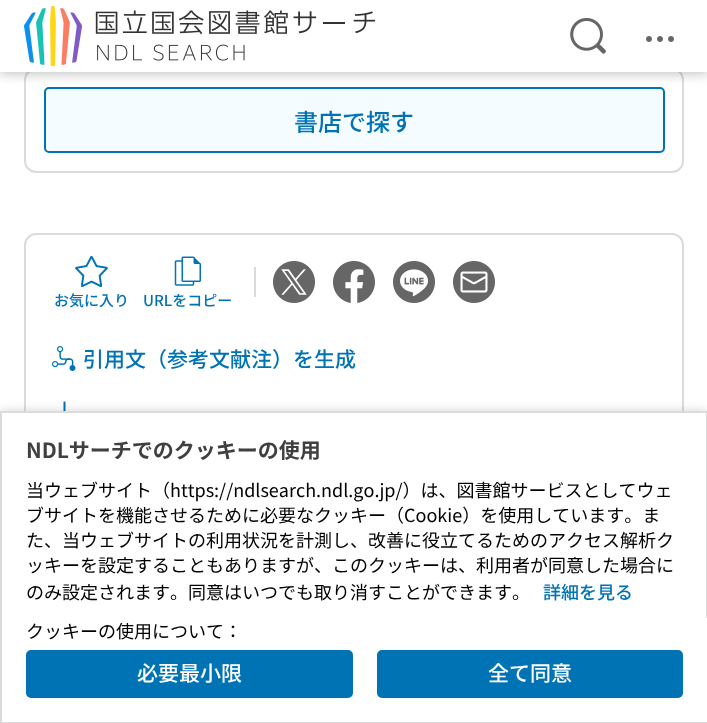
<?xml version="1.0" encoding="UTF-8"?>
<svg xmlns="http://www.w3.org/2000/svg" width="707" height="723">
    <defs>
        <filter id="blur1" x="-50%" y="-200%" width="200%" height="500%"><feGaussianBlur stdDeviation="6"/></filter>
    </defs>
    <rect width="100%" height="100%" fill="#FFFFFF"/>
    <rect x="25" y="69" width="658" height="103" rx="11" fill="none" stroke="#DBDBDB" stroke-width="2"/>
    <rect x="45" y="88" width="619" height="64" rx="4" fill="#F5FCFF" stroke="#0073B5" stroke-width="2"/>
    <rect x="0" y="2" width="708" height="72" fill="#000000" fill-opacity="0.24" filter="url(#blur1)"/>
    <rect x="0" y="0" width="707" height="72" fill="#FFFFFF"/>
    <image x="24" y="6" width="351" height="60" href="img_01.png"/>
    <image x="570" y="17" width="36" height="37" href="img_02.png"/>
    <image x="646" y="36" width="28" height="6" href="img_03.png"/>
    <text x="294" y="131" font-family="Noto Sans JP" font-size="24" font-weight="500" fill="#0073B5">書店で探す</text>
    <rect x="25" y="234" width="658" height="281" rx="11" fill="none" stroke="#DBDBDB" stroke-width="2"/>
    <rect x="254" y="267" width="2" height="30" fill="#DBDBDB"/>
    <image x="273" y="261" width="42" height="42" href="img_04.png"/>
    <image x="333" y="261" width="42" height="42" href="img_05.png"/>
    <image x="393" y="261" width="42" height="42" href="img_06.png"/>
    <image x="453" y="261" width="42" height="42" href="img_07.png"/>
    <image x="75" y="255" width="33" height="33" href="img_08.png"/>
    <text x="54" y="306" font-family="Noto Sans JP" font-size="15" font-weight="500" fill="#0073B5">お気に入り</text>
    <image x="174" y="256" width="27" height="30" href="img_09.png"/>
    <text x="143" y="306" font-family="Noto Sans JP" font-size="15" font-weight="500" fill="#0073B5">URLをコピー</text>
    <image x="52" y="346" width="24" height="25" href="img_10.png"/>
    <text x="83" y="367" font-family="Noto Sans JP" font-size="21" font-weight="500" fill="#0073B5">引用文（参考文献注）を生成</text>
    <image x="63" y="401" width="3" height="10" href="img_11.png"/>
    <rect x="0" y="413" width="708" height="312" fill="#000000" fill-opacity="0.24" filter="url(#blur1)"/>
    <rect x="2" y="413" width="704" height="205" fill="#FFFFFF"/>
    <rect x="1" y="412" width="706" height="310" fill="none" stroke="#DBDBDB" stroke-width="2"/>
    <text x="26" y="458" font-family="Noto Sans JP" font-size="21" font-weight="700" fill="#404040">NDLサーチでのクッキーの使用</text>
    <text font-family="Noto Sans JP" font-size="18" fill="#000000">
        <tspan x="26" y="497">当ウェブサイト（https://ndlsearch.ndl.go.jp/）は、図書館サービスとしてウェ</tspan>
        <tspan x="26" y="522">ブサイトを機能させるために必要なクッキー（Cookie）を使用しています。ま</tspan>
        <tspan x="26" y="547">た、当ウェブサイトの利用状況を計測し、改善に役立てるためのアクセス解析ク</tspan>
        <tspan x="26" y="572">ッキーを設定することもありますが、このクッキーは、利用者が同意した場合に</tspan>
        <tspan x="26" y="599">のみ設定されます。同意はいつでも取り消すことができます。</tspan>
    </text>
    <text x="543" y="599" font-family="Noto Sans JP" font-size="18" font-weight="500" fill="#0073B5">詳細を見る</text>
    <rect x="2" y="618" width="705" height="104" fill="#FFFFFF"/>
    <text x="26" y="638" font-family="Noto Sans JP" font-size="18" fill="#000000">クッキーの使用について：</text>
    <rect x="27" y="651" width="325" height="46" rx="4" fill="#0073B5" stroke="#0073B5" stroke-width="2"/>
    <text x="137" y="681" font-family="Noto Sans JP" font-size="21" font-weight="500" fill="#FFFFFF">必要最小限</text>
    <rect x="378" y="651" width="304" height="46" rx="4" fill="#0073B5" stroke="#0073B5" stroke-width="2"/>
    <text x="488" y="681" font-family="Noto Sans JP" font-size="21" font-weight="500" fill="#FFFFFF">全て同意</text>
</svg>
